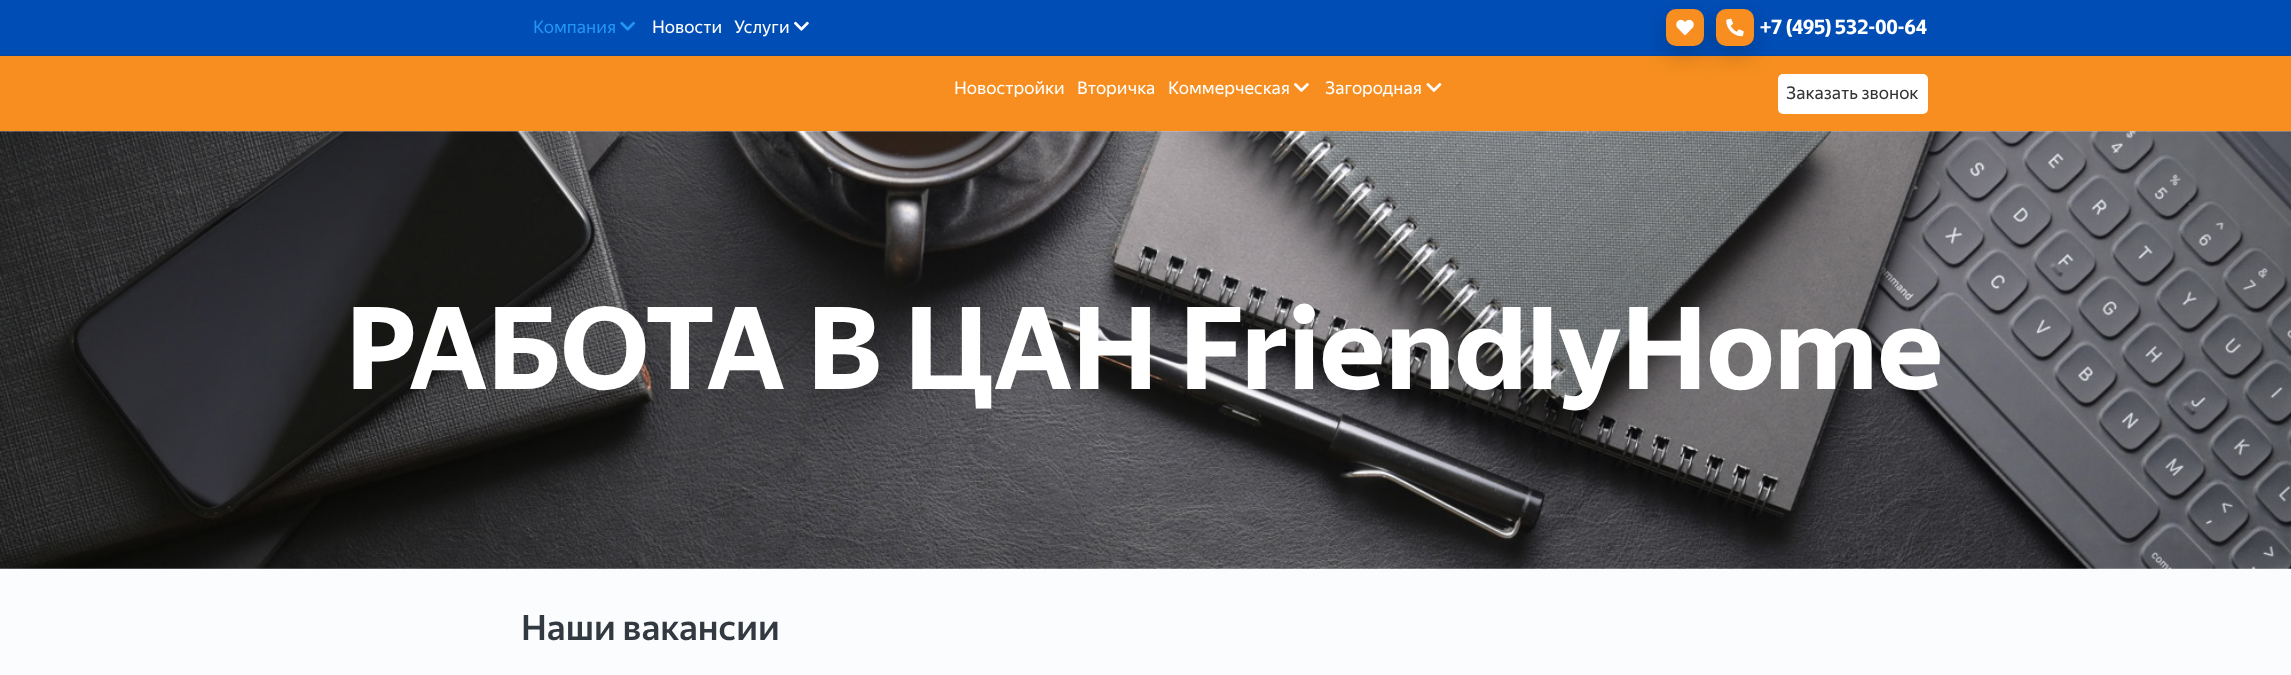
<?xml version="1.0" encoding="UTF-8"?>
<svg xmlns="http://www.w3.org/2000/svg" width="2291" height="675">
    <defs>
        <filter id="blur1" x="-50%" y="-200%" width="200%" height="500%"><feGaussianBlur stdDeviation="10.5"/></filter>
    </defs>
    <rect width="100%" height="100%" fill="#FBFCFD"/>
    <rect x="0" y="0" width="2291" height="55" fill="#004DB5"/>
    <rect x="0" y="55" width="2291" height="1" fill="#0A489B"/>
    <text x="533" y="33" font-family="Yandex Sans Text" font-size="17.5" fill="#2196F3">Компания</text>
    <image x="620" y="21" width="15" height="10" href="img_01.png"/>
    <text x="652" y="33" font-family="Yandex Sans Text" font-size="17.5" fill="#FFFFFF">Новости</text>
    <text x="734" y="33" font-family="Yandex Sans Text" font-size="17.5" fill="#FFFFFF">Услуги</text>
    <image x="794" y="21" width="15" height="10" href="img_02.png"/>
    <rect x="0" y="56" width="2291" height="75" fill="#F78E1F"/>
    <rect x="1666" y="19" width="38" height="37" rx="10" fill="#000000" fill-opacity="0.19" filter="url(#blur1)"/>
    <rect x="1666" y="9" width="38" height="37" rx="10" fill="#F78E1F"/>
    <rect x="1778" y="74" width="150" height="40" rx="5" fill="#FFFFFF"/>
    <rect x="1716" y="19" width="38" height="37" rx="10" fill="#000000" fill-opacity="0.19" filter="url(#blur1)"/>
    <image x="1676" y="19" width="18" height="17" href="img_03.png"/>
    <rect x="1716" y="9" width="38" height="37" rx="10" fill="#F78E1F"/>
    <image x="1726" y="18" width="18" height="19" href="img_04.png"/>
    <text x="1760" y="34" font-family="Yandex Sans Text" font-size="20" font-weight="700" fill="#FFFFFF">+7 (495) 532-00-64</text>
    <text x="954" y="94" font-family="Yandex Sans Text" font-size="17.5" fill="#FFFFFF">Новостройки</text>
    <text x="1077" y="94" font-family="Yandex Sans Text" font-size="17.5" fill="#FFFFFF">Вторичка</text>
    <text x="1168" y="94" font-family="Yandex Sans Text" font-size="17.5" fill="#FFFFFF">Коммерческая</text>
    <image x="1294" y="83" width="15" height="9" href="img_05.png"/>
    <text x="1325" y="94" font-family="Yandex Sans Text" font-size="17.5" fill="#FFFFFF">Загородная</text>
    <image x="1426" y="83" width="16" height="9" href="img_06.png"/>
    <text x="1786" y="99" font-family="Yandex Sans Text" font-size="17.5" fill="#333333">Заказать звонок</text>
    <image x="0" y="131" width="2291" height="438" href="img_07.png"/>
    <text x="346" y="389" font-family="Yandex Sans Text" font-size="114.5" font-weight="700" fill="#FFFFFF">РАБОТА В ЦАН FriendlyHome</text>
    <text x="521" y="640" font-family="Yandex Sans Text" font-size="35" font-weight="500" fill="#323941">Наши вакансии</text>
</svg>
